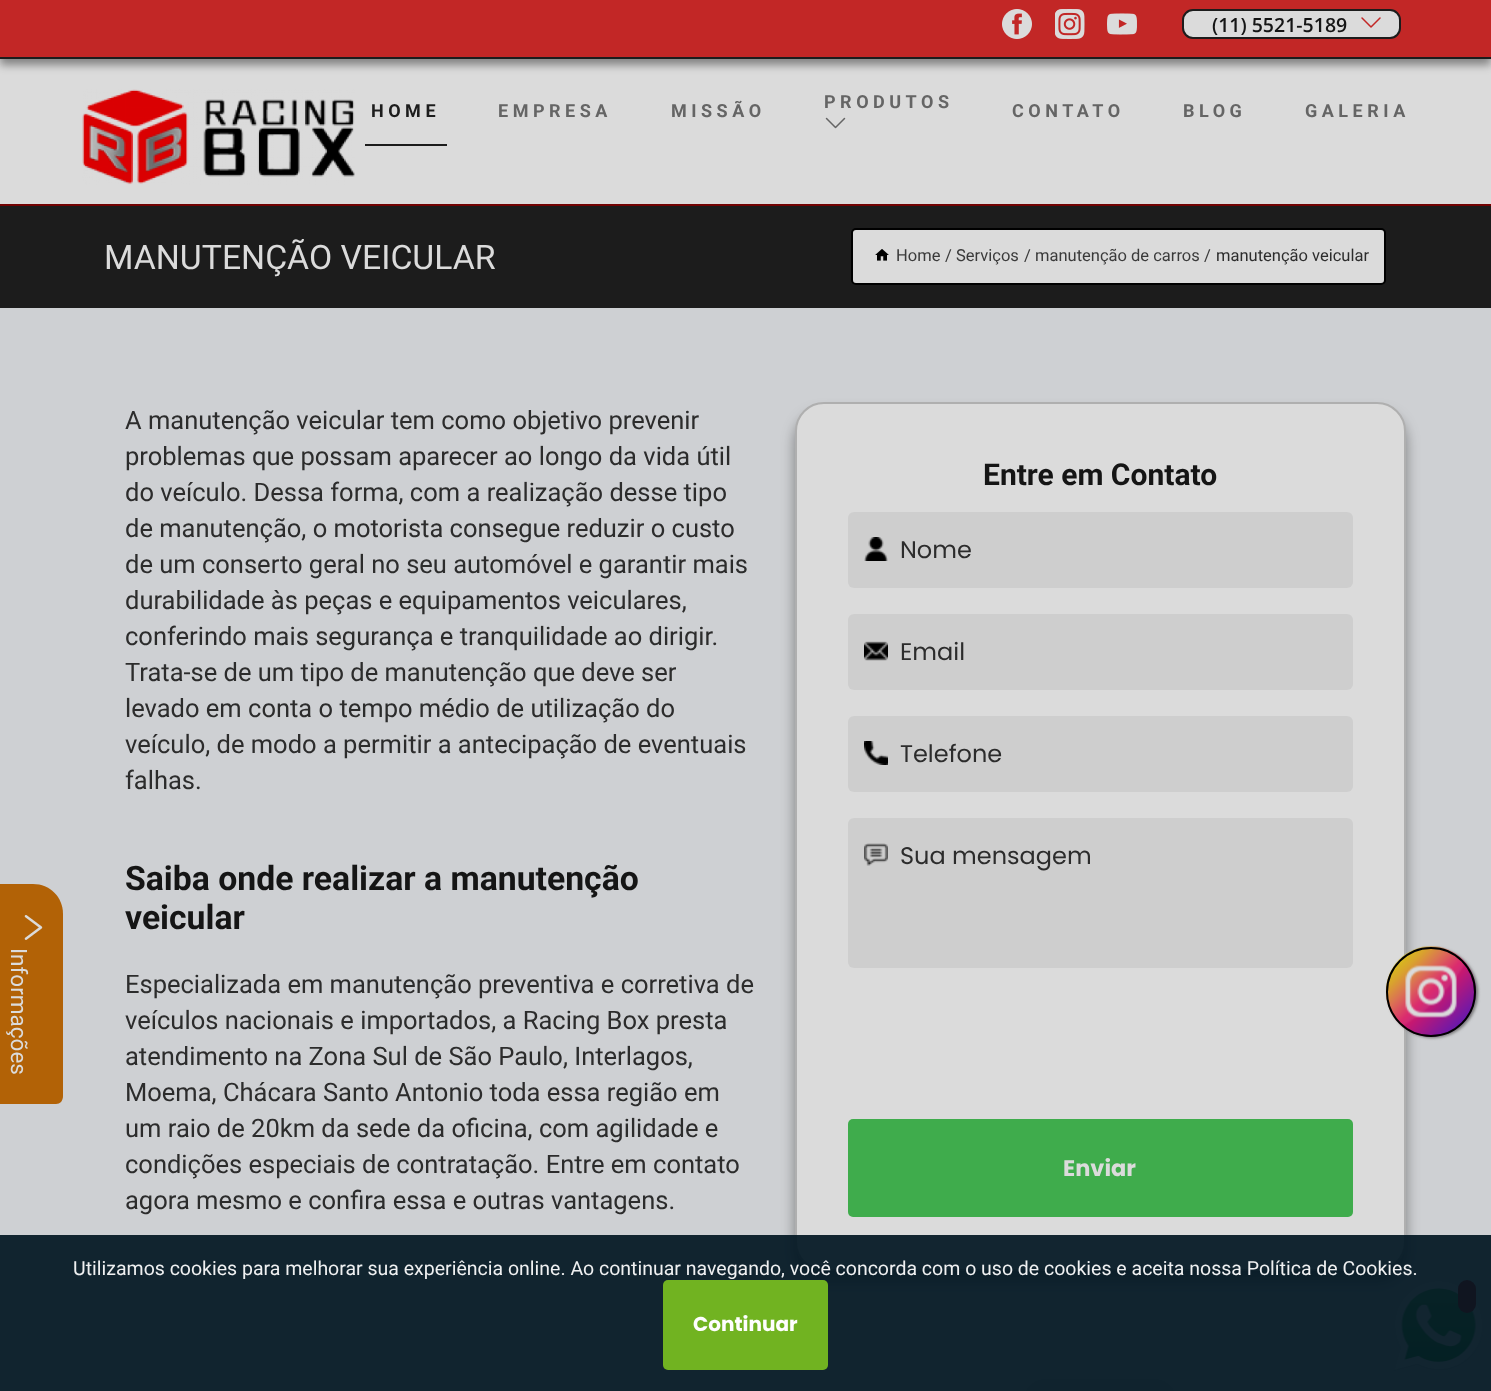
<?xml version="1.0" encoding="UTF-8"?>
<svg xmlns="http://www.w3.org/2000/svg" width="1491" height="1391">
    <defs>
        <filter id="blur1" x="-50%" y="-200%" width="200%" height="500%"><feGaussianBlur stdDeviation="4"/></filter>
        <filter id="blur2" x="-50%" y="-200%" width="200%" height="500%"><feGaussianBlur stdDeviation="18"/></filter>
        <filter id="blur3" x="-50%" y="-200%" width="200%" height="500%"><feGaussianBlur stdDeviation="7"/></filter>
        <filter id="blur4" x="-50%" y="-200%" width="200%" height="500%"><feGaussianBlur stdDeviation="1.5"/></filter>
    </defs>
    <rect width="100%" height="100%" fill="#CED0D3"/>
    <rect x="0" y="59" width="1491" height="145" fill="#DBDBDB"/>
    <rect x="0" y="6" width="1491" height="59" fill="#000000" fill-opacity="0.4" filter="url(#blur1)"/>
    <rect x="0" y="0" width="1491" height="57" fill="#C22726"/>
    <rect x="0" y="57" width="1491" height="2" fill="#1C1C1C"/>
    <image x="1002" y="9" width="30" height="30" href="img_01.png"/>
    <image x="1055" y="9" width="30" height="30" href="img_02.png"/>
    <image x="1107" y="13" width="30" height="22" href="img_03.png"/>
    <rect x="1183" y="10" width="217" height="28" rx="10" fill="#DBDBDB" stroke="#1C1C1C" stroke-width="2"/>
    <text x="1212" y="32" font-family="Open Sans" font-size="19.5" font-weight="600" fill="#151515">(11) 5521-5189</text>
    <image x="1361" y="17" width="20" height="11" href="img_04.png"/>
    <image x="82" y="89" width="273" height="96" href="img_05.png"/>
    <text x="371" y="117" font-family="Roboto" font-size="18" font-weight="700" letter-spacing="4.5" fill="#1C1C1C">HOME</text>
    <rect x="365" y="144" width="82" height="2" fill="#1C1C1C"/>
    <text x="498" y="117" font-family="Roboto" font-size="18" font-weight="700" letter-spacing="4.5" fill="#656565">EMPRESA</text>
    <text x="671" y="117" font-family="Roboto" font-size="18" font-weight="700" letter-spacing="4.5" fill="#656565">MISSÃO</text>
    <text x="824" y="108" font-family="Roboto" font-size="18" font-weight="700" letter-spacing="4.5" fill="#656565">PRODUTOS</text>
    <image x="825" y="117" width="21" height="12" href="img_06.png"/>
    <text x="1012" y="117" font-family="Roboto" font-size="18" font-weight="700" letter-spacing="4.5" fill="#656565">CONTATO</text>
    <text x="1183" y="117" font-family="Roboto" font-size="18" font-weight="700" letter-spacing="4.5" fill="#656565">BLOG</text>
    <text x="1305" y="117" font-family="Roboto" font-size="18" font-weight="700" letter-spacing="4.5" fill="#656565">GALERIA</text>
    <rect x="-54" y="893" width="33" height="186" fill="#727272" filter="url(#blur2)"/>
    <path d="M 63 914 V 1096 C 63 1101 60 1104 56 1104 H -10 V 884 H 33 C 50 884 63 897 63 914 Z" fill="#B26206"/>
    <image x="24" y="915" width="19" height="25" href="img_07.png"/>
    <text x="11" y="948" transform="rotate(90 11 948)" font-family="Roboto" font-size="22.5" fill="#DBDBDB">Informações</text>
    <rect x="795" y="413" width="611" height="868" rx="29" fill="#000000" fill-opacity="0.4" filter="url(#blur3)"/>
    <image x="1393" y="1281" width="91" height="90" href="img_08.png"/>
    <rect x="1458" y="1280" width="18" height="33" rx="9" fill="#BE0404"/>
    <rect x="0" y="206" width="1491" height="102" fill="#1C1C1C"/>
    <rect x="0" y="204" width="1491" height="2" fill="#720202"/>
    <text x="104" y="269" font-family="Roboto" font-size="33.75" fill="#DBDBDB">MANUTENÇÃO VEICULAR</text>
    <rect x="852" y="229" width="533" height="55" rx="4" fill="#DBDBDB" stroke="#000000" stroke-width="2"/>
    <image x="875" y="249" width="14" height="12" href="img_09.png"/>
    <text x="896" y="261" font-family="Roboto" font-size="16.5" fill="#3A3A3A">Home</text>
    <text x="945" y="261" font-family="Roboto" font-size="16.5" fill="#3A3A3A">/</text>
    <text x="956" y="261" font-family="Roboto" font-size="16.5" fill="#3A3A3A">Serviços</text>
    <text x="1024" y="261" font-family="Roboto" font-size="16.5" fill="#3A3A3A">/</text>
    <text x="1035" y="261" font-family="Roboto" font-size="16.5" fill="#3A3A3A">manutenção de carros</text>
    <text x="1204" y="261" font-family="Roboto" font-size="16.5" fill="#3A3A3A">/</text>
    <text x="1216" y="261" font-family="Roboto" font-size="16.5" fill="#2C2C2C">manutenção veicular</text>
    <text font-family="Roboto" font-size="25.5" fill="#2C2C2C">
        <tspan x="125" y="429">A manutenção veicular tem como objetivo prevenir</tspan>
        <tspan x="125" y="465">problemas que possam aparecer ao longo da vida útil</tspan>
        <tspan x="125" y="501">do veículo. Dessa forma, com a realização desse tipo</tspan>
        <tspan x="125" y="537">de manutenção, o motorista consegue reduzir o custo</tspan>
        <tspan x="125" y="573">de um conserto geral no seu automóvel e garantir mais</tspan>
        <tspan x="125" y="609">durabilidade às peças e equipamentos veiculares,</tspan>
        <tspan x="125" y="645">conferindo mais segurança e tranquilidade ao dirigir.</tspan>
        <tspan x="125" y="681">Trata-se de um tipo de manutenção que deve ser</tspan>
        <tspan x="125" y="717">levado em conta o tempo médio de utilização do</tspan>
        <tspan x="125" y="753">veículo, de modo a permitir a antecipação de eventuais</tspan>
        <tspan x="125" y="789">falhas.</tspan>
    </text>
    <text font-family="Roboto" font-size="33.75" font-weight="700" fill="#151515">
        <tspan x="125" y="890">Saiba onde realizar a manutenção</tspan>
        <tspan x="125" y="929">veicular</tspan>
    </text>
    <text font-family="Roboto" font-size="25.5" fill="#2C2C2C">
        <tspan x="125" y="993">Especializada em manutenção preventiva e corretiva de</tspan>
        <tspan x="125" y="1029">veículos nacionais e importados, a Racing Box presta</tspan>
        <tspan x="125" y="1065">atendimento na Zona Sul de São Paulo, Interlagos,</tspan>
        <tspan x="125" y="1101">Moema, Chácara Santo Antonio toda essa região em</tspan>
        <tspan x="125" y="1137">um raio de 20km da sede da oficina, com agilidade e</tspan>
        <tspan x="125" y="1173">condições especiais de contratação. Entre em contato</tspan>
        <tspan x="125" y="1209">agora mesmo e confira essa e outras vantagens.</tspan>
    </text>
    <rect x="796" y="403" width="609" height="867" rx="28" fill="#DBDBDB" stroke="#AFAFAF" stroke-width="2"/>
    <text x="983" y="485" font-family="Roboto" font-size="30" font-weight="700" fill="#151515">Entre em Contato</text>
    <rect x="848" y="512" width="505" height="76" rx="6" fill="#CECECE"/>
    <image x="864" y="537" width="24" height="24" href="img_10.png"/>
    <text x="900" y="558" font-family="Poppins" font-size="24" fill="#2C2C2C">Nome</text>
    <rect x="848" y="614" width="505" height="76" rx="6" fill="#CECECE"/>
    <image x="864" y="641" width="24" height="20" href="img_11.png"/>
    <text x="900" y="660" font-family="Poppins" font-size="24" fill="#2C2C2C">Email</text>
    <rect x="848" y="716" width="505" height="76" rx="6" fill="#CECECE"/>
    <image x="864" y="741" width="24" height="24" href="img_12.png"/>
    <text x="900" y="762" font-family="Poppins" font-size="24" fill="#2C2C2C">Telefone</text>
    <rect x="848" y="818" width="505" height="150" rx="6" fill="#CECECE"/>
    <image x="864" y="843" width="24" height="23" href="img_13.png"/>
    <text x="900" y="864" font-family="Poppins" font-size="24" fill="#2C2C2C">Sua mensagem</text>
    <rect x="848" y="1119" width="505" height="98" rx="5" fill="#3FAC4C"/>
    <text x="1063" y="1176" font-family="Poppins" font-size="22.5" font-weight="700" fill="#DBDBDB">Enviar</text>
    <rect x="1025" y="1379" width="150" height="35" rx="22.5" fill="#BEBEBE"/>
    <rect x="1388" y="948" width="90" height="90" rx="45" fill="#757575" filter="url(#blur4)"/>
    <image x="1386" y="946" width="90" height="91" href="img_14.png"/>
    <circle cx="1431" cy="992" r="44" fill="none" stroke="#000000" stroke-width="2"/>
    <rect x="0" y="1235" width="1491" height="156" fill="#021722" fill-opacity="0.93"/>
    <text x="73" y="1275" font-family="Roboto" font-size="19.5" fill="#EFF0F1">Utilizamos cookies para melhorar sua experiência online. Ao continuar navegando, você concorda com o uso de cookies e aceita nossa Política de Cookies.</text>
    <rect x="663" y="1280" width="165" height="90" rx="5" fill="#78BE20" fill-opacity="0.93"/>
    <text x="693" y="1331" font-family="Poppins" font-size="20" font-weight="700" fill="#FEFEFE">Continuar</text>
</svg>
